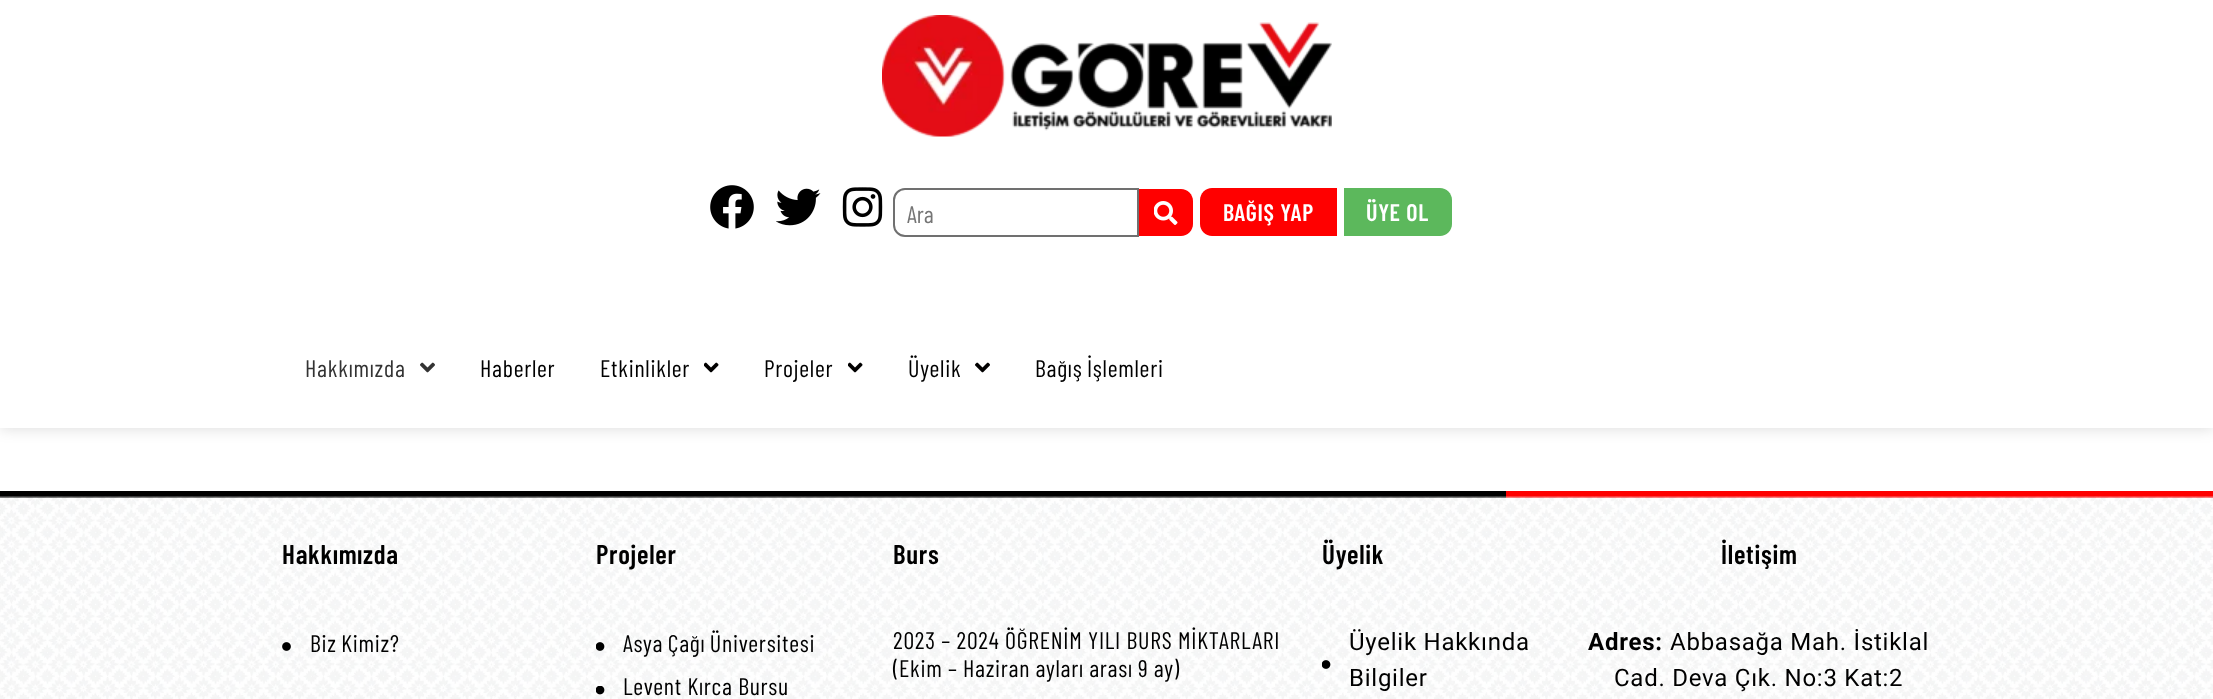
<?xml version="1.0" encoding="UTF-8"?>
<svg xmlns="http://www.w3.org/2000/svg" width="2213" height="699">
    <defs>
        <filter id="blur1" x="-50%" y="-200%" width="200%" height="500%"><feGaussianBlur stdDeviation="7.5"/></filter>
    </defs>
    <rect width="100%" height="100%" fill="#FFFFFF"/>
    <rect x="0" y="0" width="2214" height="428" fill="#000000" fill-opacity="0.15" filter="url(#blur1)"/>
    <rect x="0" y="0" width="2213" height="428" fill="#FFFFFF"/>
    <image x="882" y="15" width="450" height="122" href="img_01.png"/>
    <image x="710" y="185" width="44" height="44" href="img_02.png"/>
    <image x="776" y="188" width="45" height="38" href="img_03.png"/>
    <image x="842" y="187" width="41" height="40" href="img_04.png"/>
    <path d="M 905 189 H 1138 V 236 H 905 C 899 236 894 231 894 225 V 200 C 894 194 899 189 905 189 Z" fill="none" stroke="#707070" stroke-width="2"/>
    <text x="907" y="223" font-family="Barlow Condensed" font-size="24" fill="#757575">Ara</text>
    <path d="M 1139 189 H 1181 C 1187.5 189 1193 194.5 1193 201 V 224 C 1193 230.5 1187.5 236 1181 236 H 1139 Z" fill="#FF0000"/>
    <image x="1154" y="201" width="24" height="24" href="img_05.png"/>
    <path d="M 1212 188 H 1337 V 236 H 1212 C 1205.5 236 1200 230.5 1200 224 V 200 C 1200 193.5 1205.5 188 1212 188 Z" fill="#FF0000"/>
    <text x="1223" y="221" font-family="Barlow Condensed" font-size="24" font-weight="600" letter-spacing="0.75" fill="#FFFFFF">BAĞIŞ YAP</text>
    <path d="M 1344 188 H 1440 C 1446.5 188 1452 193.5 1452 200 V 224 C 1452 230.5 1446.5 236 1440 236 H 1344 Z" fill="#5CB85C"/>
    <text x="1366" y="221" font-family="Barlow Condensed" font-size="24" font-weight="600" letter-spacing="0.75" fill="#FFFFFF">ÜYE OL</text>
    <text x="305" y="377" font-family="Barlow Condensed" font-size="24" letter-spacing="0.75" fill="#333333">Hakkımızda</text>
    <image x="420" y="362" width="15" height="11" href="img_06.png"/>
    <text x="480" y="377" font-family="Barlow Condensed" font-size="24" letter-spacing="0.75" fill="#000000">Haberler</text>
    <text x="600" y="377" font-family="Barlow Condensed" font-size="24" letter-spacing="0.75" fill="#000000">Etkinlikler</text>
    <image x="704" y="362" width="15" height="11" href="img_07.png"/>
    <text x="764" y="377" font-family="Barlow Condensed" font-size="24" letter-spacing="0.75" fill="#000000">Projeler</text>
    <image x="848" y="362" width="15" height="11" href="img_07.png"/>
    <text x="908" y="377" font-family="Barlow Condensed" font-size="24" letter-spacing="0.75" fill="#000000">Üyelik</text>
    <image x="975" y="362" width="15" height="11" href="img_08.png"/>
    <text x="1035" y="377" word-spacing="-1" font-family="Barlow Condensed" font-size="24" letter-spacing="0.75" fill="#000000">Bağış İşlemleri</text>
    <rect x="0" y="491" width="1506" height="7" fill="#000000"/>
    <rect x="1506" y="491" width="707" height="7" fill="#FF0000"/>
    <image x="0" y="496" width="2213" height="203" href="img_09.png"/>
    <text x="282" y="564" font-family="Barlow Condensed" font-size="27" font-weight="600" letter-spacing="0.75" fill="#000000">Hakkımızda</text>
    <image x="282" y="642" width="9" height="9" href="img_10.png"/>
    <text x="310" y="652" word-spacing="-1" font-family="Barlow Condensed" font-size="24" letter-spacing="0.75" fill="#000000">Biz Kimiz?</text>
    <text x="596" y="564" font-family="Barlow Condensed" font-size="27" font-weight="600" letter-spacing="0.75" fill="#000000">Projeler</text>
    <image x="596" y="642" width="9" height="9" href="img_11.png"/>
    <text x="623" y="652" word-spacing="-1" font-family="Barlow Condensed" font-size="24" letter-spacing="0.75" fill="#000000">Asya Çağı Üniversitesi</text>
    <image x="596" y="686" width="9" height="9" href="img_12.png"/>
    <text x="623" y="695" font-family="Barlow Condensed" font-size="24" letter-spacing="0.75" fill="#000000">Levent Kırca Bursu</text>
    <text x="893" y="564" font-family="Barlow Condensed" font-size="27" font-weight="600" letter-spacing="0.75" fill="#000000">Burs</text>
    <text font-family="Barlow Condensed" font-size="24" letter-spacing="0.75" fill="#000000">
        <tspan x="893" y="649">2023 – 2024 ÖĞRENİM YILI BURS MİKTARLARI</tspan>
        <tspan x="893" y="677" word-spacing="-0.25">(Ekim – Haziran ayları arası 9 ay)</tspan>
    </text>
    <text x="1322" y="564" font-family="Barlow Condensed" font-size="27" font-weight="600" letter-spacing="0.75" fill="#000000">Üyelik</text>
    <image x="1322" y="660" width="9" height="9" href="img_13.png"/>
    <text font-family="Roboto" font-size="24" letter-spacing="0.75" fill="#000000">
        <tspan x="1349" y="650">Üyelik Hakkında</tspan>
        <tspan x="1349" y="686">Bilgiler</tspan>
    </text>
    <text x="1721" y="564" font-family="Barlow Condensed" font-size="27" font-weight="600" letter-spacing="0.75" fill="#000000">İletişim</text>
    <text x="1588" y="650" font-family="Roboto" font-size="24" font-weight="700" letter-spacing="0.75" fill="#000000">Adres:</text>
    <text x="1670" y="650" font-family="Roboto" font-size="24" letter-spacing="0.75" fill="#000000">Abbasağa Mah. İstiklal</text>
    <text x="1614" y="686" font-family="Roboto" font-size="24" letter-spacing="0.75" fill="#000000">Cad. Deva Çık. No:3 Kat:2</text>
</svg>
